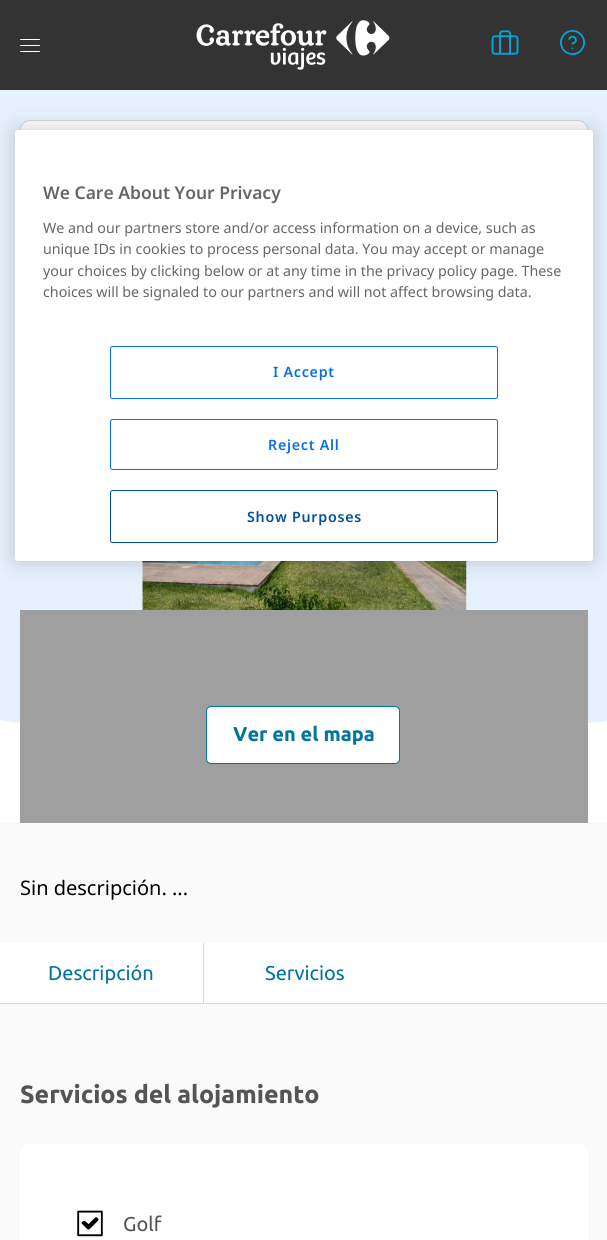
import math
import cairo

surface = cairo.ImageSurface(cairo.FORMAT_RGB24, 607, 1240)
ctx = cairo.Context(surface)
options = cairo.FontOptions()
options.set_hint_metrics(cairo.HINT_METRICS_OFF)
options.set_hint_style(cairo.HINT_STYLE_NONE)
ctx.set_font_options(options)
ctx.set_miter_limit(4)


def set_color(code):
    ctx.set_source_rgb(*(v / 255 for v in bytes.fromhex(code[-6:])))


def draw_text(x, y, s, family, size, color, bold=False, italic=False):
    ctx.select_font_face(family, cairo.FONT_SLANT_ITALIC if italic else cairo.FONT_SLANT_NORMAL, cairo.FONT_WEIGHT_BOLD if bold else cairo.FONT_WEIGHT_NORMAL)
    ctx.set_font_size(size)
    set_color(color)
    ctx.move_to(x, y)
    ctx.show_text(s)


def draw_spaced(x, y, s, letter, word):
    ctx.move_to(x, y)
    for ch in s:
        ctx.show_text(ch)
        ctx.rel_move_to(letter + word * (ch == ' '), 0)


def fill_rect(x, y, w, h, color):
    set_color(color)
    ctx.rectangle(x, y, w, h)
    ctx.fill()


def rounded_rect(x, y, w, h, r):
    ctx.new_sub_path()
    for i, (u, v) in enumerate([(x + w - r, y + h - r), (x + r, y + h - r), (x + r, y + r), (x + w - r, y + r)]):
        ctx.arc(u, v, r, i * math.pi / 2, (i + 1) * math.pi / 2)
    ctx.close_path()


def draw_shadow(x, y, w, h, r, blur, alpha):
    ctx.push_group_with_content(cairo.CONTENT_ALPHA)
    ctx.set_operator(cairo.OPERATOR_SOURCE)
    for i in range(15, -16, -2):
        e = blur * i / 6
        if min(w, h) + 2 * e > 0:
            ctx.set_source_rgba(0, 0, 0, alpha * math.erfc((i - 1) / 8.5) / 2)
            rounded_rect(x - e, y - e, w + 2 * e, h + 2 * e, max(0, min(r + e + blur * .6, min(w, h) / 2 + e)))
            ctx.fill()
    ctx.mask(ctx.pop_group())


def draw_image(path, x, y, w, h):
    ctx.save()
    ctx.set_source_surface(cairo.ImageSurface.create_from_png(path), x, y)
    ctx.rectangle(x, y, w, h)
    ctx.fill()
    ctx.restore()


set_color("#ffffff")
ctx.paint()
fill_rect(0, 0, 607, 90, "#333333")
set_color("#ffffff")
rounded_rect(20, 39, 20, 1, 0.5)
ctx.fill()
rounded_rect(20, 45, 20, 1, 0.5)
ctx.fill()
rounded_rect(20, 51, 20, 1, 0.5)
ctx.fill()
draw_image("assets/img1.png", 196, 20, 194, 50)
draw_image("assets/img2.png", 491, 30, 28, 25)
draw_image("assets/img3.png", 560, 30, 25, 25)
fill_rect(0, 90, 607, 128, "#e6f1fe")
set_color("#ffffff")
rounded_rect(20.5, 120.5, 567, 67, 9.5)
ctx.fill_preserve()
set_color("#d9d9d9")
ctx.set_line_width(1)
ctx.stroke()
set_color("#e6f1fe")
ctx.new_path()
ctx.move_to(-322, 632)
ctx.curve_to(-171, 707, 56, 739, 306, 739)
ctx.curve_to(555, 739, 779, 707, 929, 633)
ctx.line_to(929, 218)
ctx.line_to(-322, 218)
ctx.close_path()
ctx.fill()
draw_image("assets/img4.png", 142, 561, 325, 49)
set_color("#000000")
draw_shadow(15, 130, 578, 431, 3, 11, 0.2)
set_color("#ffffff")
rounded_rect(15, 130, 578, 431, 3)
ctx.fill()
draw_text(43, 199, "We Care About Your Privacy", "Noto Sans SemiBold", 17.5, "#666666")
draw_text(43, 233, "We and our partners store and/or access information on a device, such as", "Noto Sans", 14.25, "#666666")
draw_text(43, 254, "unique IDs in cookies to process personal data. You may accept or manage", "Noto Sans", 14.25, "#666666")
draw_text(43, 276, "your choices by clicking below or at any time in the privacy policy page. These", "Noto Sans", 14.25, "#666666")
draw_text(43, 297, "choices will be signaled to our partners and will not affect browsing data.", "Noto Sans", 14.25, "#666666")
rounded_rect(110.5, 346.5, 387, 52, 2)
set_color("#0970e6")
ctx.stroke()
ctx.select_font_face("Noto Sans SemiBold")
draw_spaced(273, 377, "I Accept", 0.75, 0)
rounded_rect(110.5, 419.5, 387, 50, 2)
ctx.stroke()
draw_spaced(268, 450, "Reject All", 0.75, 0)
rounded_rect(110.5, 490.5, 387, 52, 2)
set_color("#00529c")
ctx.stroke()
draw_spaced(247, 522, "Show Purposes", 0.75, 0)
fill_rect(20, 610, 568, 213, "#9f9f9f")
set_color("#ffffff")
rounded_rect(206.5, 706.5, 193, 57, 4.5)
ctx.fill_preserve()
set_color("#00769d")
ctx.stroke()
draw_text(233, 741, "Ver en el mapa", "Ubuntu", 20, "#00769d", bold=True)
fill_rect(0, 823, 607, 417, "#fafafa")
draw_text(20, 895, "Sin descripción. ...", "Noto Sans", 20, "#000000")
fill_rect(0, 943, 607, 60, "#ffffff")
fill_rect(0, 1003, 607, 1, "#d9d9d9")
draw_text(48, 980, "Descripción", "Ubuntu", 20, "#00769d")
fill_rect(203, 943, 1, 60, "#d9d9d9")
draw_text(265, 980, "Servicios", "Ubuntu", 20, "#00769d")
draw_text(20, 1103, "Servicios del alojamiento", "Ubuntu", 25, "#545454", bold=True)
set_color("#ffffff")
rounded_rect(20, 1144, 568, 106, 10)
ctx.fill()
draw_image("assets/img5.png", 77, 1210, 26, 27)
draw_text(123, 1231, "Golf", "Ubuntu", 20, "#545454")
surface.write_to_png("output.png")
